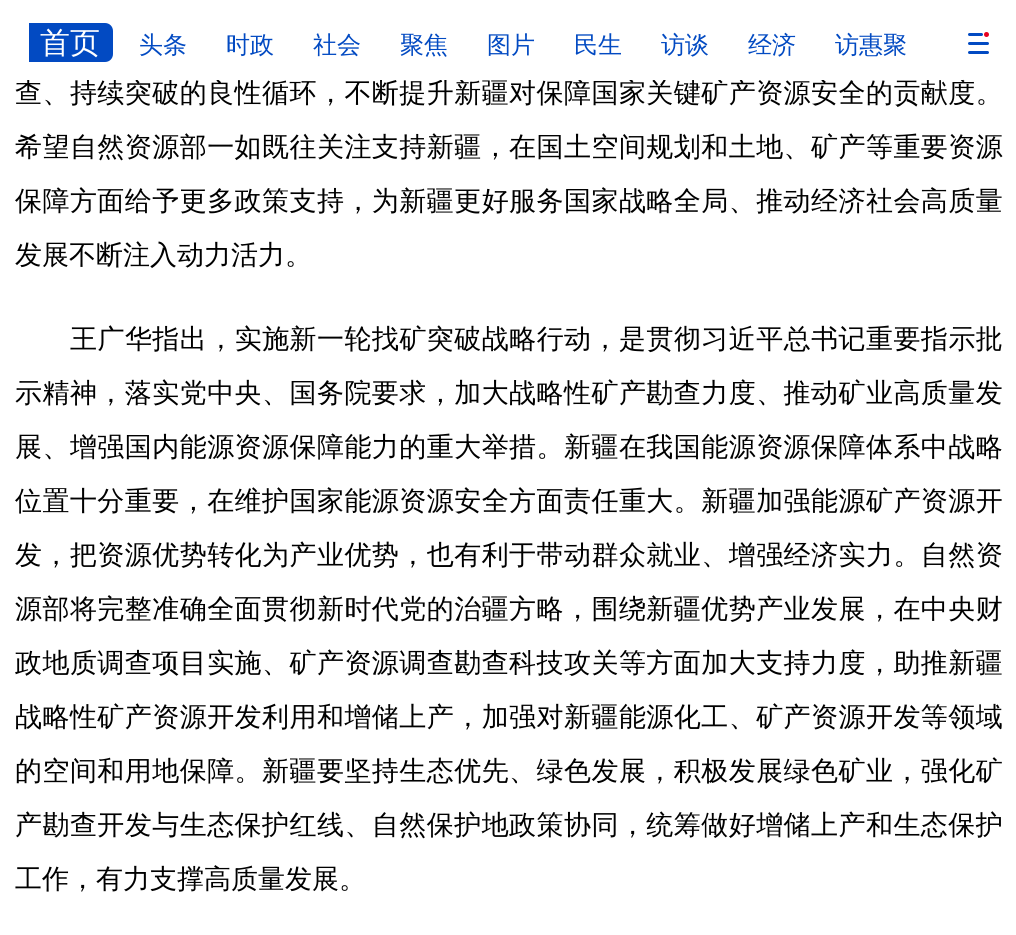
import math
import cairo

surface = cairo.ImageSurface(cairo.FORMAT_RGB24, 1016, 935)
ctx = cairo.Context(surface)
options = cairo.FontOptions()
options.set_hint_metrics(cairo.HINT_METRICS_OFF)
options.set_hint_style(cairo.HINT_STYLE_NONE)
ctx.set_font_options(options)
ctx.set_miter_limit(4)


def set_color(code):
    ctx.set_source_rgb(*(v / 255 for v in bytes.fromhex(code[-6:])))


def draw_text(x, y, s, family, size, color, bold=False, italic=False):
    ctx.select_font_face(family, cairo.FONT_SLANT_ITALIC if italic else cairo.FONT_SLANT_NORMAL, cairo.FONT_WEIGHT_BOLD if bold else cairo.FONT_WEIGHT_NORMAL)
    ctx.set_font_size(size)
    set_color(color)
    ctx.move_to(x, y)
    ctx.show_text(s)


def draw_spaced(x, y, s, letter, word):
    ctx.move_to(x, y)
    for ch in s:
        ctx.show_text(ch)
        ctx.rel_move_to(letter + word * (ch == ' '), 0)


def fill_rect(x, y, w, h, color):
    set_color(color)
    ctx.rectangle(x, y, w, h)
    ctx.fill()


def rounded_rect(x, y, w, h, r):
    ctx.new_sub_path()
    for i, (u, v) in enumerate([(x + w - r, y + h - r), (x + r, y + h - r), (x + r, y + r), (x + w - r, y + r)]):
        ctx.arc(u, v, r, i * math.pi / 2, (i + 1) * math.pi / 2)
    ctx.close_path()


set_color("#ffffff")
ctx.paint()
ctx.select_font_face("WenQuanYi Zen Hei Medium")
ctx.set_font_size(27)
set_color("#000000")
draw_spaced(15, 102, "查、持续突破的良性循环，不断提升新疆对保障国家关键矿产资源安全的贡献度。", 0.45, 0)
fill_rect(27, 79, 936, 1, "#ffffff")
set_color("#024ac2")
ctx.new_path()
ctx.move_to(29, 23)
ctx.line_to(105, 23)
ctx.curve_to(109.5, 23, 113, 26.5, 113, 31)
ctx.line_to(113, 54)
ctx.curve_to(113, 58.5, 109.5, 62, 105, 62)
ctx.line_to(29, 62)
ctx.close_path()
ctx.fill()
draw_text(40, 53, "首页", "WenQuanYi Zen Hei Medium", 30, "#ffffff")
draw_text(139, 53, "头条", "WenQuanYi Zen Hei Medium", 24, "#024ac2")
draw_text(226, 53, "时政", "WenQuanYi Zen Hei Medium", 24, "#024ac2")
draw_text(313, 53, "社会", "WenQuanYi Zen Hei Medium", 24, "#024ac2")
draw_text(400, 53, "聚焦", "WenQuanYi Zen Hei Medium", 24, "#024ac2")
draw_text(487, 53, "图片", "WenQuanYi Zen Hei Medium", 24, "#024ac2")
draw_text(574, 53, "民生", "WenQuanYi Zen Hei Medium", 24, "#024ac2")
draw_text(661, 53, "访谈", "WenQuanYi Zen Hei Medium", 24, "#024ac2")
draw_text(748, 53, "经济", "WenQuanYi Zen Hei Medium", 24, "#024ac2")
draw_text(835, 53, "访惠聚", "WenQuanYi Zen Hei Medium", 24, "#024ac2")
rounded_rect(968, 33, 15, 3, 1.5)
ctx.fill()
set_color("#e50020")
ctx.arc(986.5, 34.5, 2.5, 0, 2 * math.pi)
ctx.fill()
set_color("#024ac2")
rounded_rect(968, 42, 21, 3, 1.5)
ctx.fill()
rounded_rect(968, 51, 21, 3, 1.5)
ctx.fill()
ctx.set_font_size(27)
set_color("#000000")
draw_spaced(15, 156, "希望自然资源部一如既往关注支持新疆，在国土空间规划和土地、矿产等重要资源", 0.45, 0)
draw_spaced(15, 210, "保障方面给予更多政策支持，为新疆更好服务国家战略全局、推动经济社会高质量", 0.45, 0)
draw_text(15, 264, "发展不断注入动力活力。", "WenQuanYi Zen Hei Medium", 27, "#000000")
draw_spaced(70, 348, "王广华指出，实施新一轮找矿突破战略行动，是贯彻习近平总书记重要指示批", 0.45, 0)
draw_spaced(15, 402, "示精神，落实党中央、国务院要求，加大战略性矿产勘查力度、推动矿业高质量发", 0.45, 0)
draw_spaced(15, 456, "展、增强国内能源资源保障能力的重大举措。新疆在我国能源资源保障体系中战略", 0.45, 0)
draw_spaced(15, 510, "位置十分重要，在维护国家能源资源安全方面责任重大。新疆加强能源矿产资源开", 0.45, 0)
draw_spaced(15, 564, "发，把资源优势转化为产业优势，也有利于带动群众就业、增强经济实力。自然资", 0.45, 0)
draw_spaced(15, 618, "源部将完整准确全面贯彻新时代党的治疆方略，围绕新疆优势产业发展，在中央财", 0.45, 0)
draw_spaced(15, 672, "政地质调查项目实施、矿产资源调查勘查科技攻关等方面加大支持力度，助推新疆", 0.45, 0)
draw_spaced(15, 726, "战略性矿产资源开发利用和增储上产，加强对新疆能源化工、矿产资源开发等领域", 0.45, 0)
draw_spaced(15, 780, "的空间和用地保障。新疆要坚持生态优先、绿色发展，积极发展绿色矿业，强化矿", 0.45, 0)
draw_spaced(15, 834, "产勘查开发与生态保护红线、自然保护地政策协同，统筹做好增储上产和生态保护", 0.45, 0)
draw_text(15, 888, "工作，有力支撑高质量发展。", "WenQuanYi Zen Hei Medium", 27, "#000000")
surface.write_to_png("output.png")
